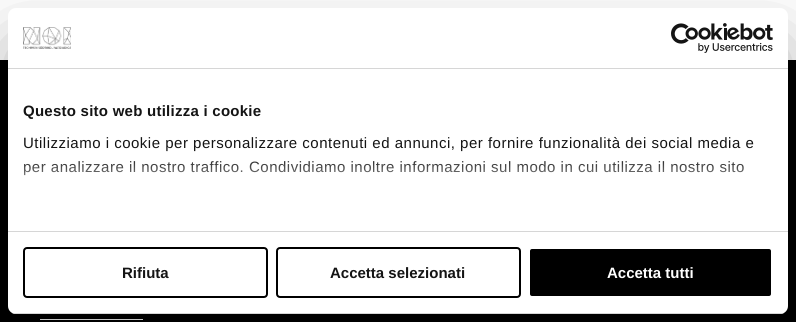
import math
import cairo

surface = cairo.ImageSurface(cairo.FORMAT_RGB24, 796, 322)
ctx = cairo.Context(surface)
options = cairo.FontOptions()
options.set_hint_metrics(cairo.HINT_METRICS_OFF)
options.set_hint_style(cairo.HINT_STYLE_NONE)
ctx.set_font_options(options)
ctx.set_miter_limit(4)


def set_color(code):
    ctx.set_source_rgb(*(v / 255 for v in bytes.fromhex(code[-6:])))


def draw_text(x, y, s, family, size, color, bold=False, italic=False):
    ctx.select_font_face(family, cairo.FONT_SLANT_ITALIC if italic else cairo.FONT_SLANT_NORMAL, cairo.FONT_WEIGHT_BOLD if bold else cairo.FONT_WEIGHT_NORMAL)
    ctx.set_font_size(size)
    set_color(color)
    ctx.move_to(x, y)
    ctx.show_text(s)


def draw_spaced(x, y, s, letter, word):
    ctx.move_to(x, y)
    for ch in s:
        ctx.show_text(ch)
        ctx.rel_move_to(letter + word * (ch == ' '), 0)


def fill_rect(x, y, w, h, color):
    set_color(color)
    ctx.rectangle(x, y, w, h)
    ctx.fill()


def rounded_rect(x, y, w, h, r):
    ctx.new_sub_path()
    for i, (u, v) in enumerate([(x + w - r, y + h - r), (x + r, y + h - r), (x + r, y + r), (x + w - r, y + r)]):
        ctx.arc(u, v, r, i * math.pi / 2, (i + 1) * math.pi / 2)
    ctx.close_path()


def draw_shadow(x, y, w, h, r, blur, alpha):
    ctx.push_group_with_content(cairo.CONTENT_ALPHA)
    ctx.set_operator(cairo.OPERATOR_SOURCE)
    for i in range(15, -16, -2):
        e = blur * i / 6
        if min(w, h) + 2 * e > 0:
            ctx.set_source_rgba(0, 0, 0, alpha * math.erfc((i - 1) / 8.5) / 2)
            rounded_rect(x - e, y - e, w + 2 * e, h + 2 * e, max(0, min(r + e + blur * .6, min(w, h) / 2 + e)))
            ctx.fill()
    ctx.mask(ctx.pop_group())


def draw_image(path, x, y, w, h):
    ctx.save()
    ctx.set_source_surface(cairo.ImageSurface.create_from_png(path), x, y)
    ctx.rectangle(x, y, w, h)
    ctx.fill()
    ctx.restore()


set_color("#000000")
ctx.paint()
fill_rect(0, 0, 796, 60, "#ffffff")
fill_rect(40, 319, 103, 1, "#ffffff")
set_color("#000000")
draw_shadow(8, 40, 780, 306, 8, 34, 0.3)
set_color("#ffffff")
rounded_rect(8, 8, 780, 306, 8)
ctx.fill()
fill_rect(8, 68, 780, 1, "#d6d6d6")
draw_image("assets/img1.png", 23, 27, 48, 22)
draw_image("assets/img2.png", 671, 23, 102, 30)
fill_rect(8, 231, 780, 1, "#d6d6d6")
ctx.select_font_face("Liberation Sans", cairo.FONT_SLANT_NORMAL, cairo.FONT_WEIGHT_BOLD)
ctx.set_font_size(15)
set_color("#141414")
draw_spaced(23, 116, "Questo sito web utilizza i cookie", 0.25, 0)
ctx.select_font_face("Liberation Sans")
draw_spaced(23, 148, "Utilizziamo i cookie per personalizzare contenuti ed annunci, per fornire funzionalità dei social media e", 0.5, 0)
draw_spaced(23, 172, "per analizzare il nostro traffico. Condividiamo inoltre informazioni sul modo in cui utilizza il nostro sito", 0.5, 0)
gradient = cairo.LinearGradient(392, 231, 392, 156)
gradient.add_color_stop_rgba(0, 1, 1, 1, 1)
gradient.add_color_stop_rgba(0.5, 1, 1, 1, 0.8)
gradient.add_color_stop_rgba(1, 1, 1, 1, 0)
ctx.set_source(gradient)
ctx.rectangle(24, 161, 720, 15)
ctx.fill()
ctx.save()
rounded_rect(8, 8, 780, 306, 8)
ctx.clip()
fill_rect(8, 313, 780, 1, "#d6d6d6")
ctx.restore()
rounded_rect(24, 248, 243, 49, 3)
set_color("#000000")
ctx.stroke()
draw_text(122, 278, "Rifiuta", "Liberation Sans", 15, "#141414", bold=True)
rounded_rect(277, 248, 243, 49, 3)
set_color("#000000")
ctx.stroke()
draw_text(330, 278, "Accetta selezionati", "Liberation Sans", 15, "#141414", bold=True)
set_color("#000000")
rounded_rect(529, 248, 243, 49, 3)
ctx.fill_preserve()
set_color("#ffffff")
ctx.stroke()
draw_text(607, 278, "Accetta tutti", "Liberation Sans", 15, "#ffffff", bold=True)
surface.write_to_png("output.png")
